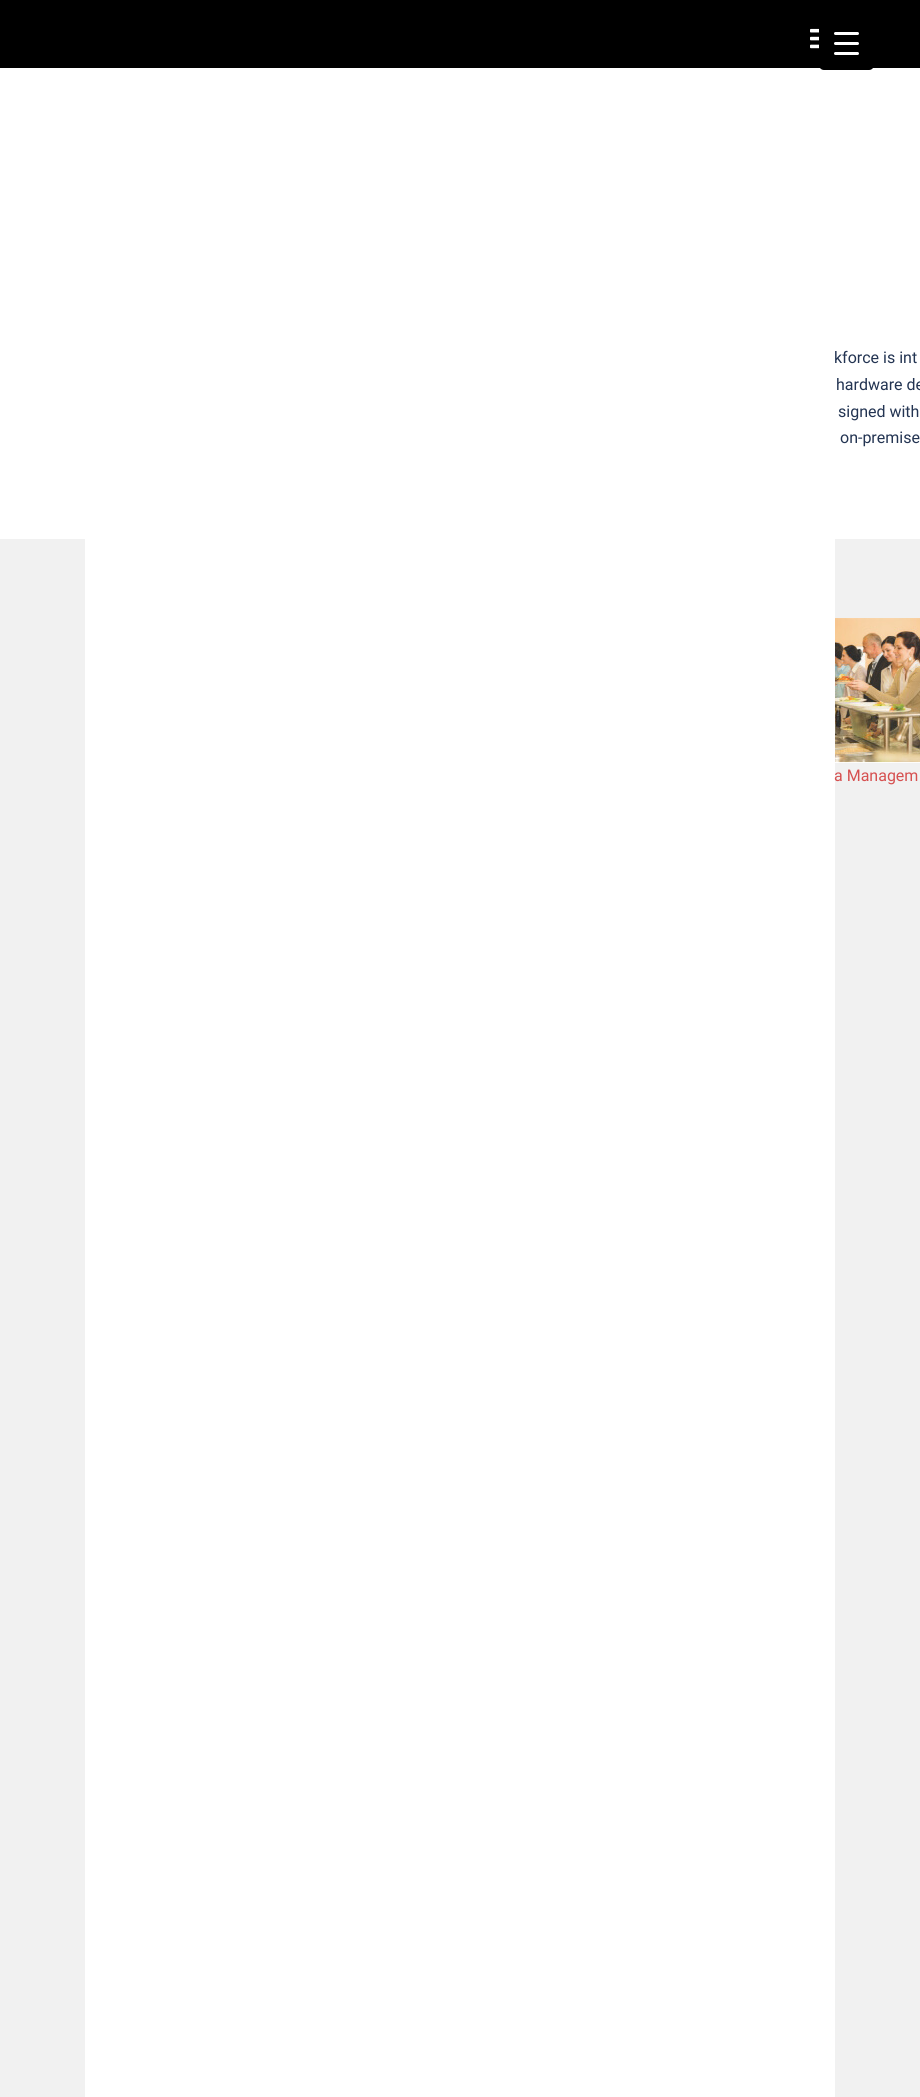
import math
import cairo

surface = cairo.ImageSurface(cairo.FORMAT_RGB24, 920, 2097)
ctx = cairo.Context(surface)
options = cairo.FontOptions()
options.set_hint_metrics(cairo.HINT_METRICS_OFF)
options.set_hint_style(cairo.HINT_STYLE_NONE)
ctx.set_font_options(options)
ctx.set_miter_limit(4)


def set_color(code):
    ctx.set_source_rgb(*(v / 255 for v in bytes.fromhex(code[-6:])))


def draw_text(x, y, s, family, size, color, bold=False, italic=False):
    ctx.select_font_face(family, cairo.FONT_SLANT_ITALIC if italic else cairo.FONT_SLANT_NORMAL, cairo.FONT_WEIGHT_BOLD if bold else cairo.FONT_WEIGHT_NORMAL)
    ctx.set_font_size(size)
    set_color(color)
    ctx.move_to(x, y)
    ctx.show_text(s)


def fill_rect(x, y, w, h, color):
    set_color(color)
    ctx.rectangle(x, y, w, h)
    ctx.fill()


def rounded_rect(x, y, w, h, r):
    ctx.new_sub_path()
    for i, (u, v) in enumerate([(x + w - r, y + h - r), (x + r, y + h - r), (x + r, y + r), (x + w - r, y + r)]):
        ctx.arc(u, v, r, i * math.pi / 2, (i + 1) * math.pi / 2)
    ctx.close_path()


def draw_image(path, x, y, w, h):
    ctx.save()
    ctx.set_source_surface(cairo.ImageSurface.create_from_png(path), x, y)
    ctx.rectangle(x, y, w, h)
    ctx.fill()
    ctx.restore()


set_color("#ffffff")
ctx.paint()
fill_rect(0, 0, 920, 68, "#000000")
rounded_rect(819, 15, 55, 55, 5)
ctx.fill()
set_color("#ffffff")
rounded_rect(834, 42, 25, 3, 1.5)
ctx.fill()
rounded_rect(834, 32, 25, 3, 1.5)
ctx.fill()
rounded_rect(834, 52, 25, 3, 1.5)
ctx.fill()
draw_image("assets/img1.png", 810, 28, 9, 21)
fill_rect(0, 539, 920, 1558, "#f1f1f1")
fill_rect(85, 539, 750, 1558, "#ffffff")
draw_text(834, 363, "kforce is int", "Roboto", 16, "#233452")
draw_text(836, 390, "hardware de", "Roboto", 16, "#233452")
draw_text(838, 417, "signed with", "Roboto", 16, "#233452")
draw_text(840, 443, "on-premise", "Roboto", 16, "#233452")
draw_image("assets/img2.png", 835, 618, 85, 145)
draw_text(834, 781, "a Managem", "Roboto", 16, "#d65050")
surface.write_to_png("output.png")
